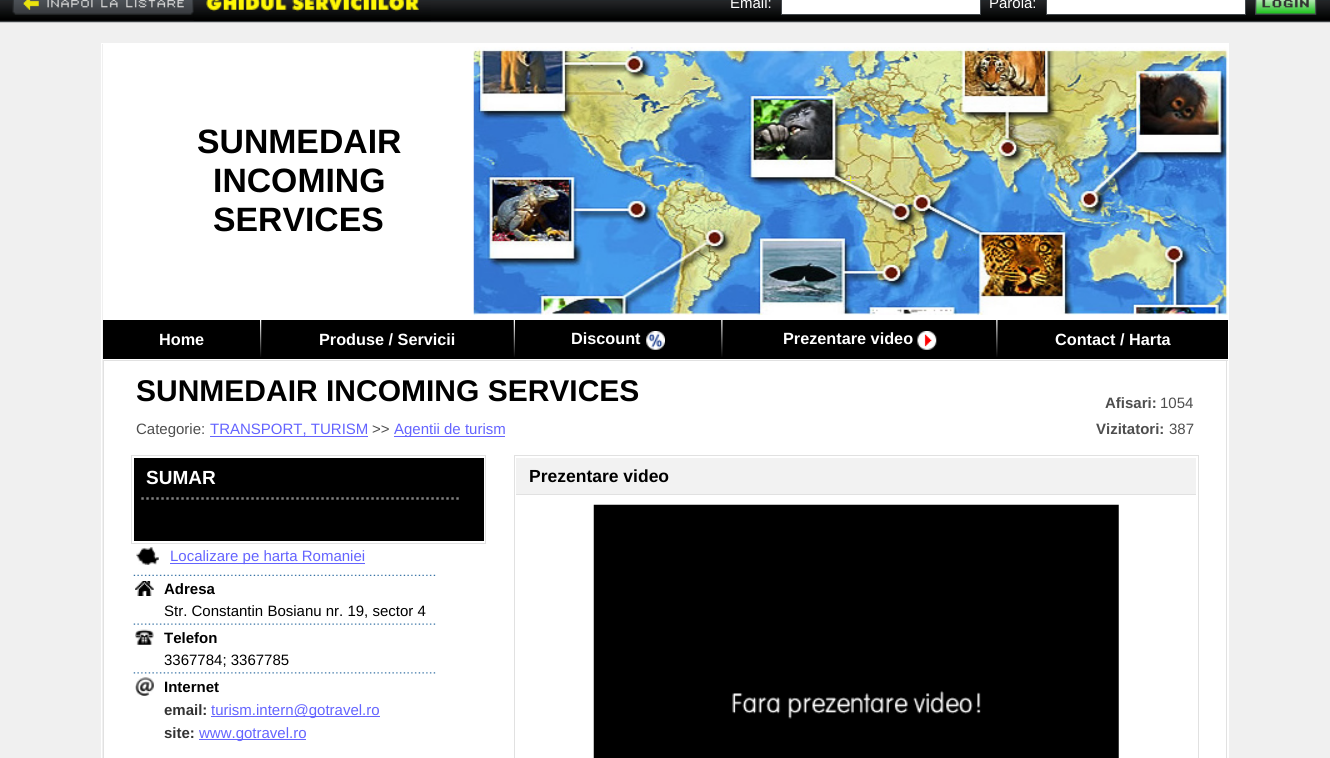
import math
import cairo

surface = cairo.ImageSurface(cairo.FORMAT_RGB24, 1330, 758)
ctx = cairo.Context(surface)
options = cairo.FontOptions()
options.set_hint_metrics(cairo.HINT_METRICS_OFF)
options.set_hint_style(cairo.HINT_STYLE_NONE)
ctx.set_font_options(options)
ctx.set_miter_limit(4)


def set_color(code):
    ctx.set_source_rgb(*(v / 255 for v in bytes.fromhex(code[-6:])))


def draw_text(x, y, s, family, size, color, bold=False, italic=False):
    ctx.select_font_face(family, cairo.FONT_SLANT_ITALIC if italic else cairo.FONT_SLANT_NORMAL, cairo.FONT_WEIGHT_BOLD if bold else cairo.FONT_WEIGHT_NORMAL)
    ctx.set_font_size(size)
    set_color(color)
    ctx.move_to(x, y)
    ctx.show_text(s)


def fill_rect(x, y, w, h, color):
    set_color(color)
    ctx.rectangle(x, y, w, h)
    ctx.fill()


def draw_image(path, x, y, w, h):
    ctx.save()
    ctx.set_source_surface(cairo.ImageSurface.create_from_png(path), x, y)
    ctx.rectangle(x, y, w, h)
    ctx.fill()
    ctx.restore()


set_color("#f0f0f0")
ctx.paint()
draw_image("assets/img1.png", 0, 0, 1330, 23)
draw_image("assets/img2.png", 12, 0, 182, 15)
draw_image("assets/img3.png", 193, 0, 238, 21)
draw_text(730, 8, "Email:", "Liberation Sans", 15, "#ffffff")
ctx.rectangle(781.5, -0.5, 199, 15)
ctx.fill_preserve()
set_color("#44494d")
ctx.set_line_width(1)
ctx.stroke()
draw_text(989, 8, "Parola:", "Liberation Sans", 15, "#ffffff")
ctx.rectangle(1046.5, -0.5, 199, 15)
ctx.fill_preserve()
set_color("#44494d")
ctx.stroke()
draw_image("assets/img4.png", 1255, 0, 62, 15)
ctx.rectangle(101.5, 43.5, 1127, 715)
set_color("#ffffff")
ctx.stroke()
fill_rect(103, 44, 1125, 276, "#ffffff")
draw_image("assets/img5.png", 473, 47, 755, 268)
draw_text(197, 153, "SUNMEDAIR", "Liberation Sans", 33.75, "#000000", bold=True)
draw_text(213, 192, "INCOMING", "Liberation Sans", 33.75, "#000000", bold=True)
draw_text(213, 231, "SERVICES", "Liberation Sans", 33.75, "#000000", bold=True)
fill_rect(103, 359, 1125, 1, "#ffffff")
fill_rect(103, 320, 1125, 39, "#000000")
draw_text(159, 345, "Home", "Liberation Sans", 16.25, "#ffffff", bold=True)
draw_image("assets/img6.png", 260, 320, 2, 37)
draw_text(319, 345, "Produse / Servicii", "Liberation Sans", 16.25, "#ffffff", bold=True)
draw_image("assets/img7.png", 513, 320, 2, 37)
draw_text(571, 344, "Discount", "Liberation Sans", 16.25, "#ffffff", bold=True)
draw_image("assets/img8.png", 646, 331, 19, 19)
draw_image("assets/img9.png", 721, 320, 2, 37)
draw_text(783, 344, "Prezentare video", "Liberation Sans", 16.25, "#ffffff", bold=True)
draw_image("assets/img10.png", 917, 331, 20, 19)
draw_image("assets/img9.png", 996, 320, 2, 37)
draw_text(1055, 345, "Contact / Harta", "Liberation Sans", 16.25, "#ffffff", bold=True)
fill_rect(104, 361, 1124, 397, "#ffffff")
fill_rect(103, 360, 1125, 1, "#e1e1e1")
fill_rect(1226, 360, 1, 398, "#e1e1e1")
fill_rect(103, 360, 1, 398, "#e1e1e1")
draw_text(136, 401, "SUNMEDAIR INCOMING SERVICES", "Liberation Sans", 30, "#000000", bold=True)
draw_text(1105, 408, "Afisari:", "Liberation Sans", 15, "#4e4e4e", bold=True)
draw_text(1160, 408, "1054", "Liberation Sans", 15, "#4e4e4e")
draw_text(136, 434, "Categorie:", "Liberation Sans", 15, "#4e4e4e")
draw_text(210, 434, "TRANSPORT, TURISM", "Liberation Sans", 15, "#6464ff")
fill_rect(210, 436, 158, 1, "#6464ff")
draw_text(372, 434, ">>", "Liberation Sans", 15, "#4e4e4e")
fill_rect(394, 436, 111, 1, "#6464ff")
draw_text(394, 434, "Agentii de turism", "Liberation Sans", 15, "#6464ff")
draw_text(1096, 434, "Vizitatori:", "Liberation Sans", 15, "#4e4e4e", bold=True)
draw_text(1169, 434, "387", "Liberation Sans", 15, "#4e4e4e")
ctx.rectangle(131.5, 455.5, 354, 88)
set_color("#e1e1e1")
ctx.stroke()
fill_rect(134, 458, 350, 83, "#000000")
draw_text(146, 484, "SUMAR", "Liberation Sans", 19, "#ffffff", bold=True)
draw_image("assets/img11.png", 141, 497, 318, 3)
draw_image("assets/img12.png", 136, 547, 23, 18)
fill_rect(170, 563, 195, 1, "#6464ff")
draw_text(170, 561, "Localizare pe harta Romaniei", "Liberation Sans", 15, "#6464ff")
draw_image("assets/img13.png", 133, 574, 303, 2)
draw_image("assets/img14.png", 135, 581, 19, 15)
draw_text(164, 594, "Adresa", "Liberation Sans", 15, "#000000", bold=True)
draw_text(164, 616, "Str. Constantin Bosianu nr. 19, sector 4", "Liberation Sans", 15, "#000000")
draw_image("assets/img15.png", 133, 623, 303, 2)
draw_image("assets/img16.png", 135, 629, 19, 16)
draw_text(164, 643, "Telefon", "Liberation Sans", 15, "#000000", bold=True)
draw_text(164, 665, "3367784; 3367785", "Liberation Sans", 15, "#000000")
draw_image("assets/img17.png", 133, 672, 303, 2)
draw_image("assets/img18.png", 135, 677, 19, 19)
draw_text(164, 692, "Internet", "Liberation Sans", 15, "#000000", bold=True)
draw_text(164, 715, "email:", "Liberation Sans", 15, "#333333", bold=True)
fill_rect(211, 716, 169, 1, "#6464ff")
draw_text(211, 715, "turism.intern@gotravel.ro", "Liberation Sans", 15, "#6464ff")
draw_text(164, 738, "site:", "Liberation Sans", 15, "#333333", bold=True)
fill_rect(199, 739, 107, 1, "#6464ff")
draw_text(199, 738, "www.gotravel.ro", "Liberation Sans", 15, "#6464ff")
ctx.rectangle(514.5, 455.5, 684, 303)
set_color("#e1e1e1")
ctx.stroke()
fill_rect(516, 458, 680, 36, "#f2f2f2")
fill_rect(516, 494, 680, 1, "#e1e1e1")
draw_text(529, 482, "Prezentare video", "Liberation Sans", 17.5, "#000000", bold=True)
draw_image("assets/img19.png", 593, 504, 526, 254)
surface.write_to_png("output.png")
